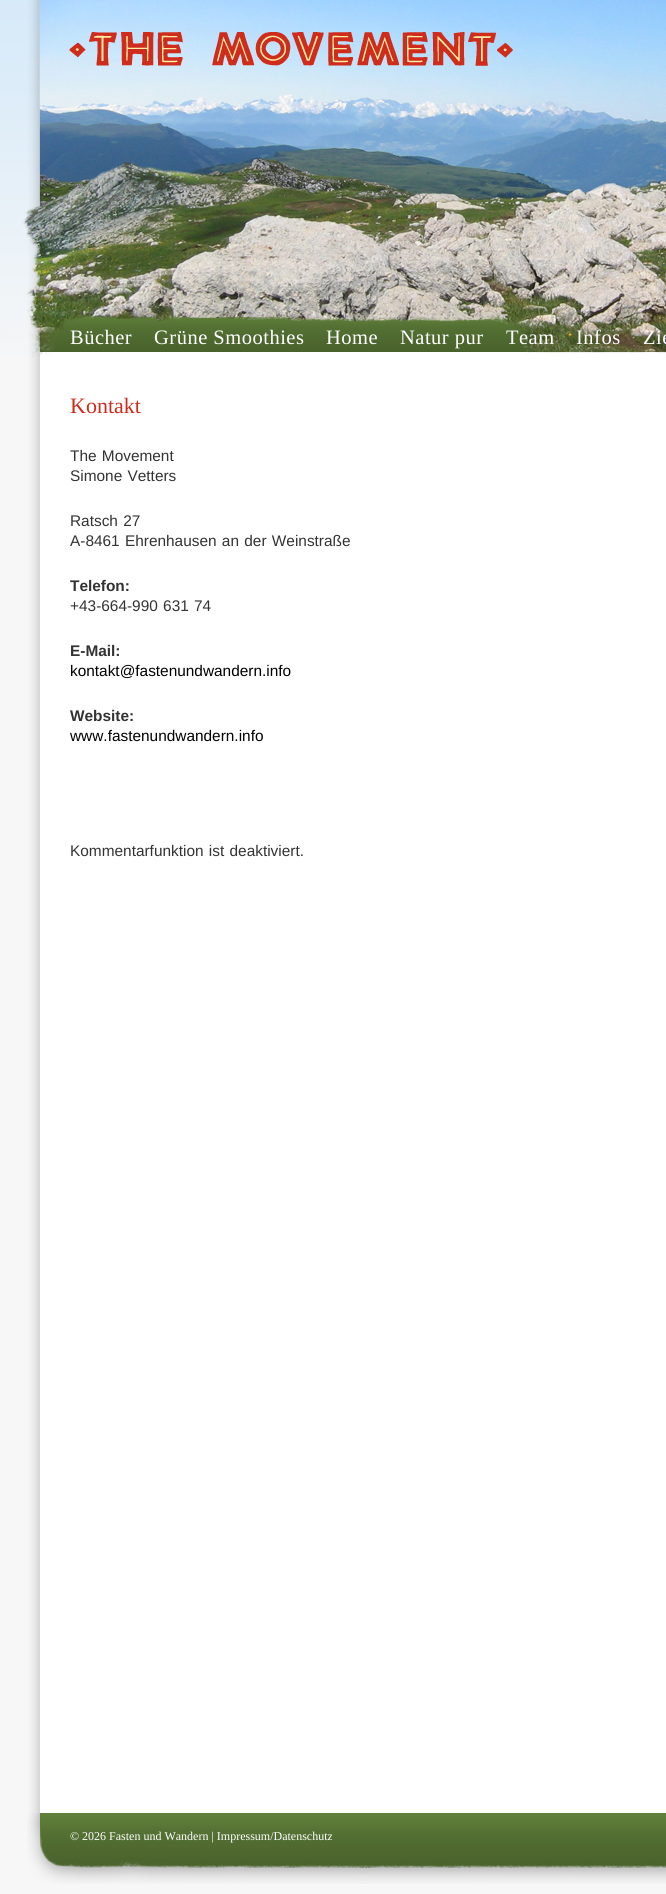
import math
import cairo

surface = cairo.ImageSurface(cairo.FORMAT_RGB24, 666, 1894)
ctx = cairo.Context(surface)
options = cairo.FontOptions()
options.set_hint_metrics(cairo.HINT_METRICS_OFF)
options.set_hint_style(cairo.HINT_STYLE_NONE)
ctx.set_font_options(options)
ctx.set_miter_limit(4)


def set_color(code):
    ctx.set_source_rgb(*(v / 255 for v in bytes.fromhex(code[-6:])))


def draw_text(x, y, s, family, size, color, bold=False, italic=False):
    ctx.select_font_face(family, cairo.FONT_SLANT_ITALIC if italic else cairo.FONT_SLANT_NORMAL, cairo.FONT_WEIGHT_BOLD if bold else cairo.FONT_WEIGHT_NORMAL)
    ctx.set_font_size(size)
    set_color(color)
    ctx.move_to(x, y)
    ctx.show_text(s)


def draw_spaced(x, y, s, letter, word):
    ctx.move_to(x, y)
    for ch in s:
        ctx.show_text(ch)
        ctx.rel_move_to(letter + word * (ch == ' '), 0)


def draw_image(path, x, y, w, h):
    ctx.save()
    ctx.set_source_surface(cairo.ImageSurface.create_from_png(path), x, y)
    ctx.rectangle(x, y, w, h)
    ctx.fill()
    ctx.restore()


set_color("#f7f7f7")
ctx.paint()
draw_image("assets/img1.png", 0, 357, 666, 1456)
draw_image("assets/img2.png", 0, 0, 666, 357)
ctx.select_font_face("Liberation Serif")
ctx.set_font_size(20.5)
set_color("#ffffff")
draw_spaced(70, 344, "Bücher", 0.5, 0)
draw_spaced(154, 344, "Grüne Smoothies", 0.5, 0)
draw_spaced(326, 344, "Home", 0.5, 0)
draw_spaced(400, 344, "Natur pur", 0.5, 0)
draw_spaced(506, 344, "Team", 0.5, 0)
draw_spaced(576, 344, "Infos", 0.5, 0)
draw_spaced(643, 344, "Zie", 0.5, 0)
draw_text(70, 413, "Kontakt", "Liberation Serif", 22, "#cf2c1c")
ctx.select_font_face("Liberation Sans")
ctx.set_font_size(15.4)
set_color("#333333")
draw_spaced(70, 461, "The Movement", 0, 1)
draw_spaced(70, 481, "Simone Vetters", 0, 1)
draw_spaced(70, 526, "Ratsch 27", 0, 1)
draw_spaced(70, 546, "A-8461 Ehrenhausen an der Weinstraße", 0, 1)
draw_text(70, 591, "Telefon:", "Liberation Sans", 15.4, "#333333", bold=True)
ctx.select_font_face("Liberation Sans")
draw_spaced(70, 611, "+43-664-990 631 74", 0, 1)
draw_text(70, 656, "E-Mail:", "Liberation Sans", 15.4, "#333333", bold=True)
draw_text(70, 676, "kontakt@fastenundwandern.info", "Liberation Sans", 15.4, "#000000")
draw_text(70, 721, "Website:", "Liberation Sans", 15.4, "#333333", bold=True)
draw_text(70, 741, "www.fastenundwandern.info", "Liberation Sans", 15.4, "#000000")
set_color("#333333")
draw_spaced(70, 856, "Kommentarfunktion ist deaktiviert.", 0, 1)
draw_image("assets/img3.png", 27, 1813, 639, 71)
draw_text(70, 1840, "© 2026 Fasten und Wandern | Impressum/Datenschutz", "Liberation Serif", 12, "#ffffff")
surface.write_to_png("output.png")
